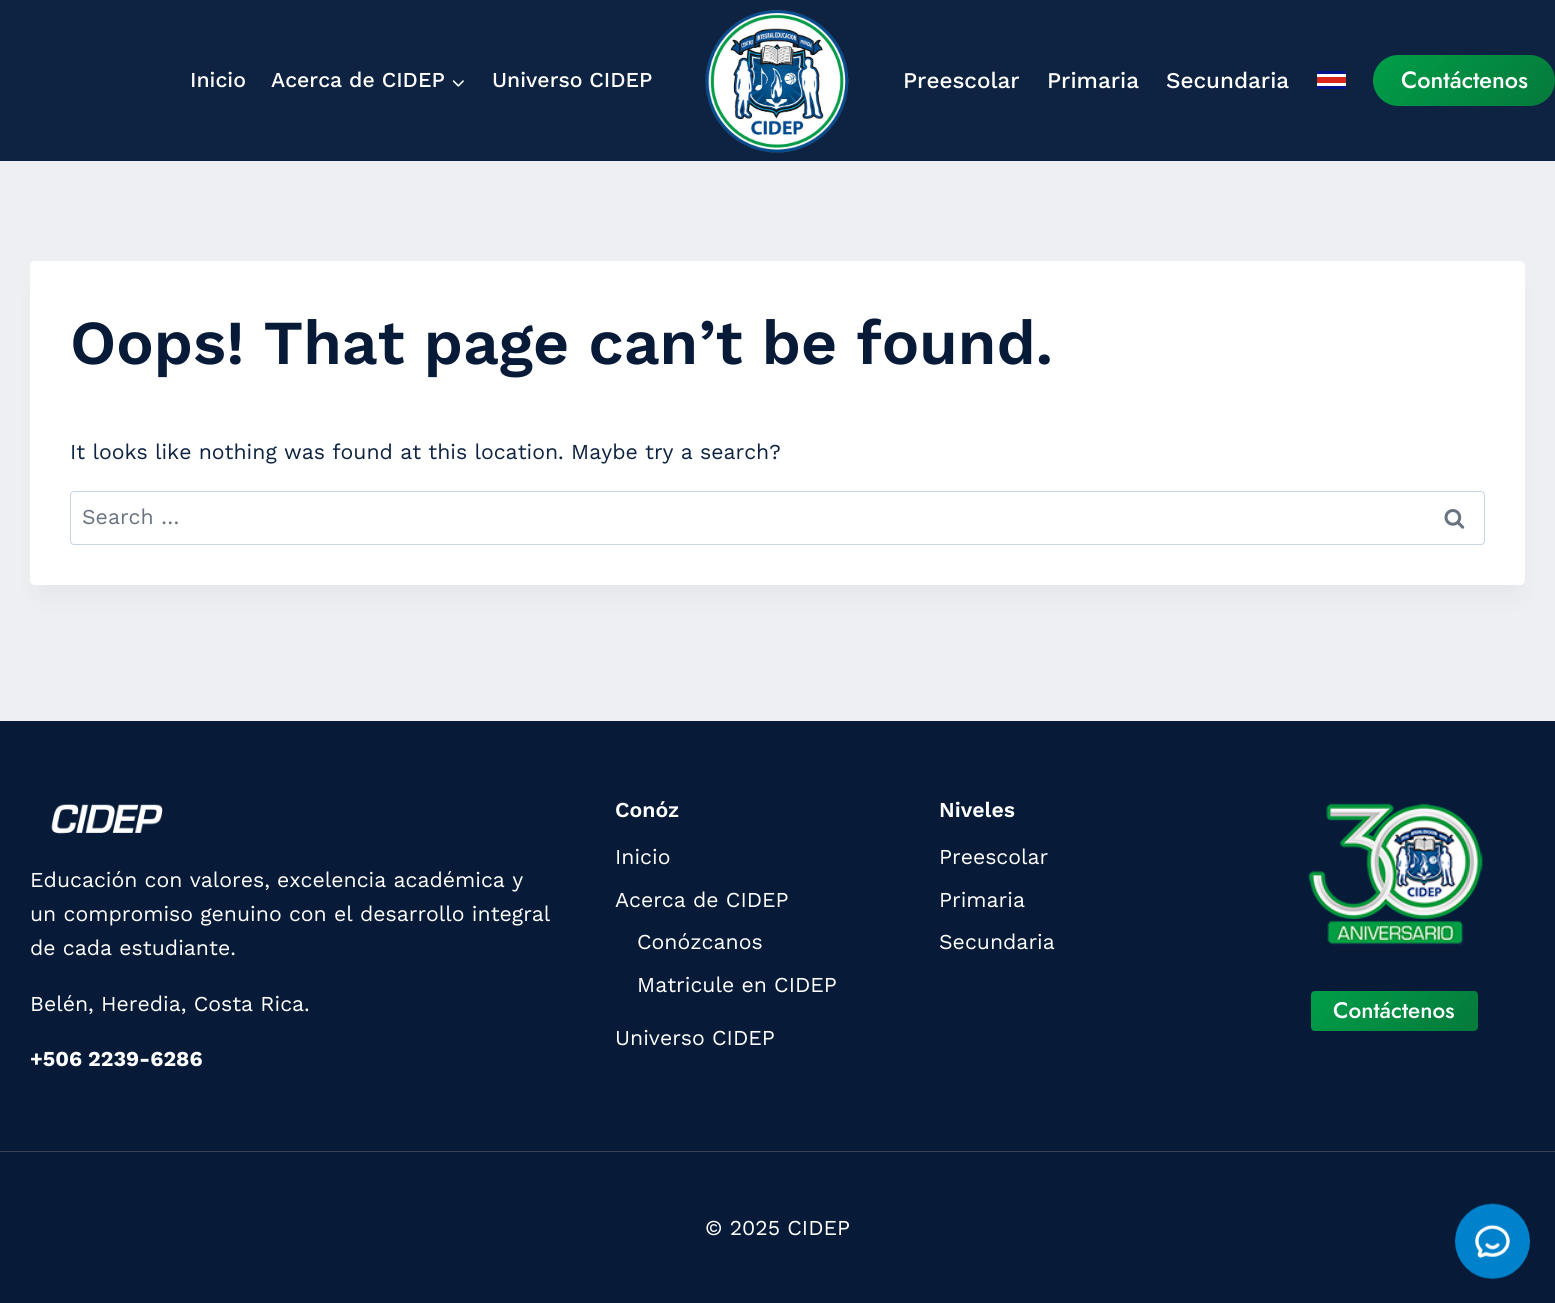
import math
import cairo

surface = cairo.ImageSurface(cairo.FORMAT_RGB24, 1555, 1303)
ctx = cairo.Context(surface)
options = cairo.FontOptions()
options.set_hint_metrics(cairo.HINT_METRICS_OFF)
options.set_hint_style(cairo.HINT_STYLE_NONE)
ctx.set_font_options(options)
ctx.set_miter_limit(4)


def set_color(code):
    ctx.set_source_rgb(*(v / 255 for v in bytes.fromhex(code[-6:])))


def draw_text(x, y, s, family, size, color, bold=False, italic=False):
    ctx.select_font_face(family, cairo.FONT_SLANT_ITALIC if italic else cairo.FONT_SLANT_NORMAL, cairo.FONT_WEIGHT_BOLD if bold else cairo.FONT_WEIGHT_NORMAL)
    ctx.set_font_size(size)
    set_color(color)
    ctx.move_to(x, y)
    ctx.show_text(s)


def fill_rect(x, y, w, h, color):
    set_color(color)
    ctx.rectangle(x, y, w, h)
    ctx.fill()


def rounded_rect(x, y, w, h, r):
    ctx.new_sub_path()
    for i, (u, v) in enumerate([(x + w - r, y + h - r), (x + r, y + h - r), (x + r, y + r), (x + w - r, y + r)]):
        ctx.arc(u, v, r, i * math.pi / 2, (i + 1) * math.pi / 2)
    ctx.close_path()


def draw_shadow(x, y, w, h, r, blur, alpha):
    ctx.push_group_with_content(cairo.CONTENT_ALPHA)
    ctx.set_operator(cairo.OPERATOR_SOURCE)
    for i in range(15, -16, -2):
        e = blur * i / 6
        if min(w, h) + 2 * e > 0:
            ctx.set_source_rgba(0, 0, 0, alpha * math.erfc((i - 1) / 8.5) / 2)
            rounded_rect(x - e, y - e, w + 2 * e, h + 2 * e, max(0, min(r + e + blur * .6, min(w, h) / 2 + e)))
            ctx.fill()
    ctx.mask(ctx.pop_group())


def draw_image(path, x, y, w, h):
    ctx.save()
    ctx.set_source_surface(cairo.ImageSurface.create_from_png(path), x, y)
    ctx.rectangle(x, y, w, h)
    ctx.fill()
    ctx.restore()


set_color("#edeff3")
ctx.paint()
fill_rect(0, 0, 1555, 161, "#0e2341")
draw_text(190, 87, "Inicio", "Work Sans Medium", 21.25, "#ffffff")
draw_text(271, 87, "Acerca de CIDEP", "Work Sans Medium", 21.25, "#ffffff")
draw_image("assets/img1.png", 452, 80, 12, 7)
draw_text(492, 87, "Universo CIDEP", "Work Sans Medium", 21.25, "#ffffff")
draw_image("assets/img2.png", 705, 10, 144, 143)
draw_text(903, 88, "Preescolar", "Work Sans Medium", 22.5, "#ffffff")
draw_text(1047, 88, "Primaria", "Work Sans Medium", 22.5, "#ffffff")
draw_text(1166, 88, "Secundaria", "Work Sans Medium", 22.5, "#ffffff")
fill_rect(1317, 71, 29, 18, "#001489")
fill_rect(1317, 74, 29, 12, "#ffffff")
fill_rect(1317, 77, 29, 6, "#da291c")
gradient = cairo.LinearGradient(1405, 22, 1522, 139)
gradient.add_color_stop_rgba(0, 0, 0.62, 0.286, 1)
gradient.add_color_stop_rgba(1, 0.02, 0.475, 0.231, 1)
ctx.set_source(gradient)
rounded_rect(1373, 55, 182, 51, 25.5)
ctx.fill()
draw_text(1401, 88, "Contáctenos", "Jost Medium", 23.5, "#ffffff")
set_color("#000000")
draw_shadow(43, 293, 1470, 298, 0, 15.5, 0.05)
set_color("#ffffff")
rounded_rect(30, 261, 1495, 324, 5)
ctx.fill()
draw_text(70, 364, "Oops! That page can’t be found.", "Work Sans SemiBold", 62.5, "#071b38")
draw_text(70, 459, "It looks like nothing was found at this location. Maybe try a search?", "Work Sans", 21.25, "#0e2341")
rounded_rect(70.5, 491.5, 1414, 53, 3.5)
set_color("#cbd5e0")
ctx.set_line_width(1)
ctx.stroke()
draw_text(82, 524, "Search …", "Work Sans", 21.25, "#697380")
draw_image("assets/img3.png", 1444, 509, 21, 20)
fill_rect(0, 721, 1555, 582, "#071b38")
fill_rect(0, 1151, 1555, 1, "#374352")
draw_image("assets/img4.png", 51, 804, 112, 30)
draw_text(30, 887, "Educación con valores, excelencia académica y", "Work Sans", 21.25, "#ffffff")
draw_text(30, 921, "un compromiso genuino con el desarrollo integral", "Work Sans", 21.25, "#ffffff")
draw_text(30, 955, "de cada estudiante.", "Work Sans", 21.25, "#ffffff")
draw_text(30, 1011, "Belén, Heredia, Costa Rica.", "Work Sans", 21.25, "#ffffff")
draw_text(30, 1066, "+506 2239-6286", "Work Sans", 21.25, "#ffffff", bold=True)
draw_text(615, 817, "Conóz", "Work Sans SemiBold", 21.25, "#ffffff")
draw_text(615, 864, "Inicio", "Work Sans", 21.25, "#ffffff")
draw_text(615, 907, "Acerca de CIDEP", "Work Sans", 21.25, "#ffffff")
draw_text(637, 949, "Conózcanos", "Work Sans", 21.25, "#ffffff")
draw_text(637, 992, "Matricule en CIDEP", "Work Sans", 21.25, "#ffffff")
draw_text(615, 1045, "Universo CIDEP", "Work Sans", 21.25, "#ffffff")
draw_text(939, 817, "Niveles", "Work Sans SemiBold", 21.25, "#ffffff")
draw_text(939, 864, "Preescolar", "Work Sans", 21.25, "#ffffff")
draw_text(939, 907, "Primaria", "Work Sans", 21.25, "#ffffff")
draw_text(939, 949, "Secundaria", "Work Sans", 21.25, "#ffffff")
draw_image("assets/img5.png", 1308, 803, 175, 143)
gradient = cairo.LinearGradient(1343, 960, 1446, 1063)
gradient.add_color_stop_rgba(0, 0, 0.62, 0.286, 1)
gradient.add_color_stop_rgba(1, 0.02, 0.475, 0.231, 1)
ctx.set_source(gradient)
rounded_rect(1311, 991, 167, 40, 4)
ctx.fill()
draw_text(1333, 1018, "Contáctenos", "Jost Medium", 22.5, "#ffffff")
draw_text(705, 1235, "© 2025 CIDEP", "Work Sans", 21.25, "#ffffff")
draw_image("assets/img6.png", 1455, 1203, 75, 76)
surface.write_to_png("output.png")
